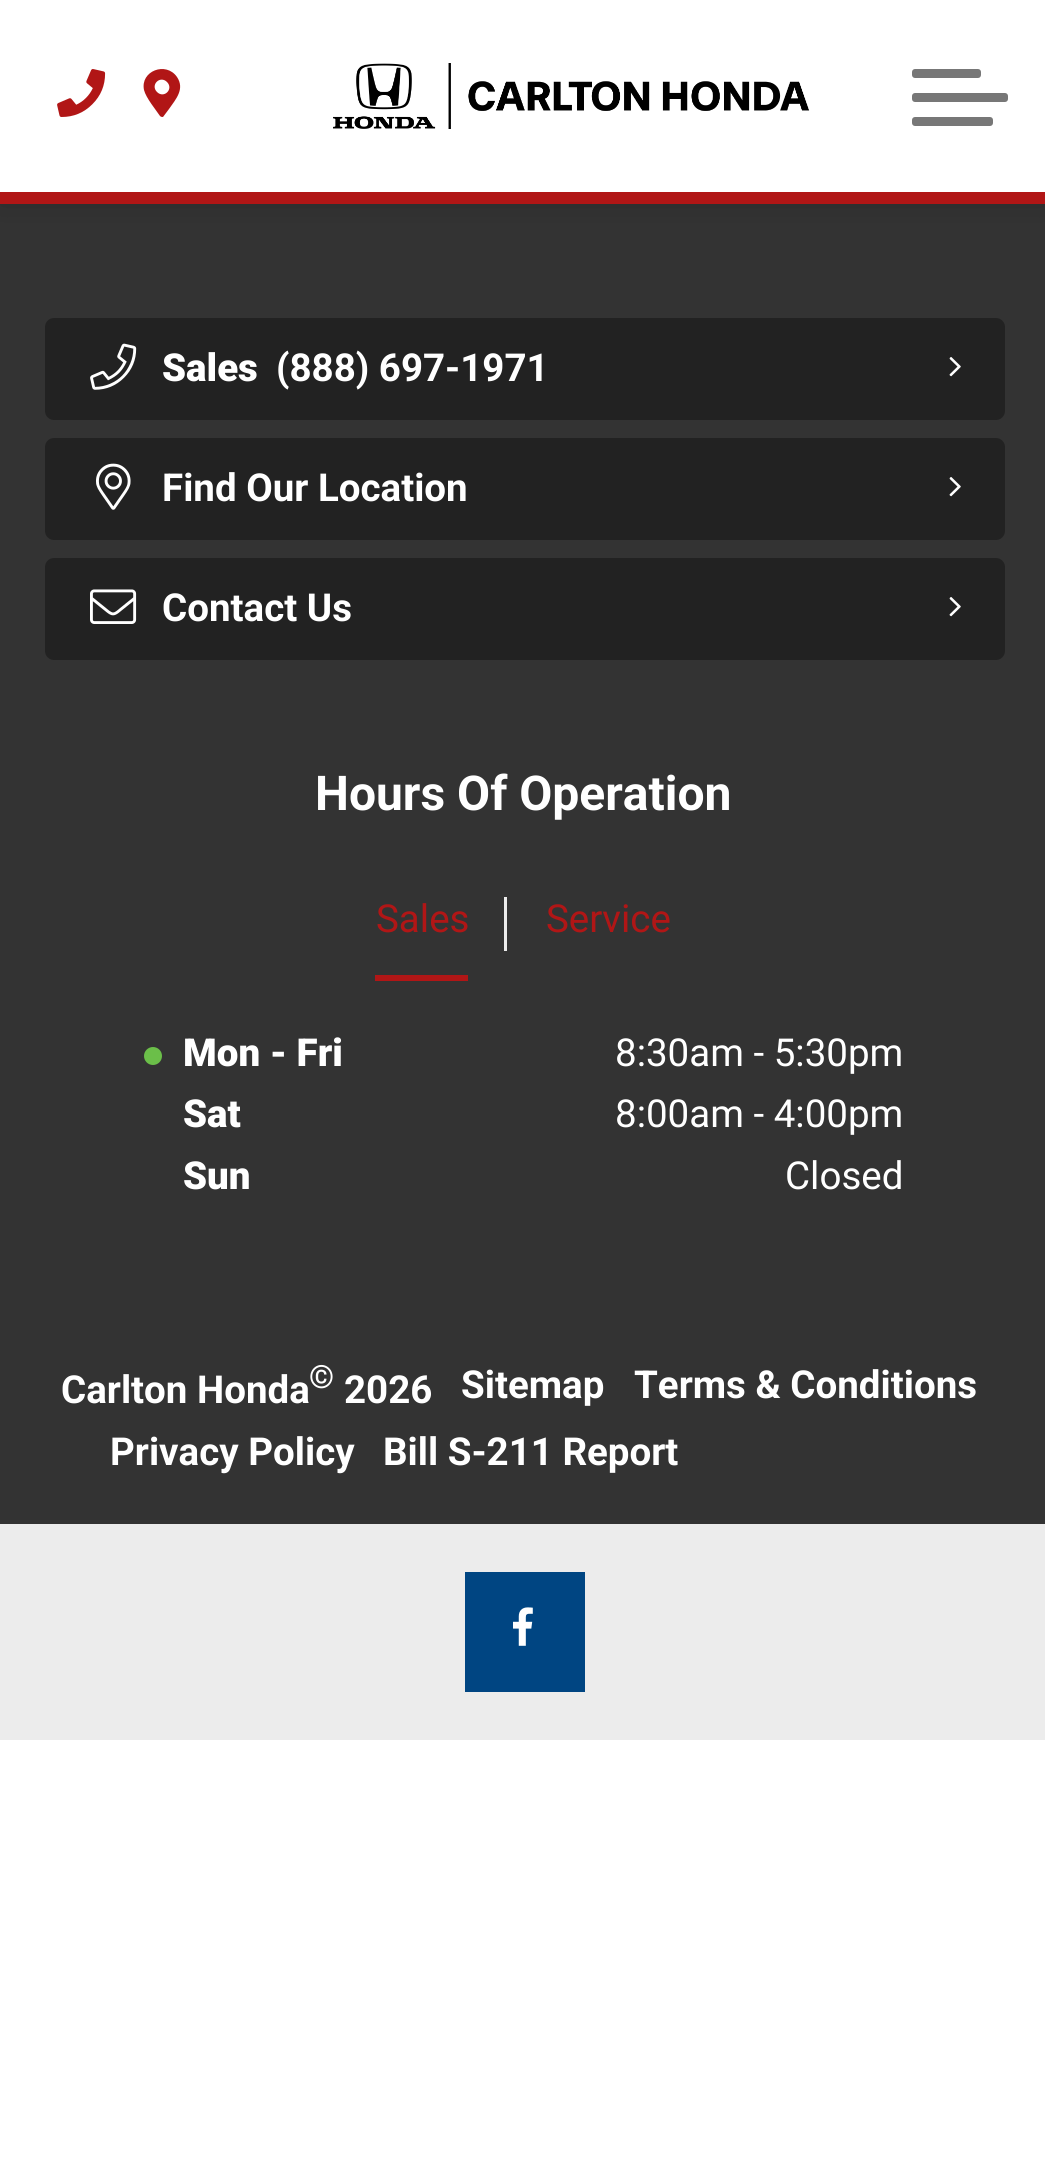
import math
import cairo

surface = cairo.ImageSurface(cairo.FORMAT_RGB24, 1045, 2165)
ctx = cairo.Context(surface)
options = cairo.FontOptions()
options.set_hint_metrics(cairo.HINT_METRICS_OFF)
options.set_hint_style(cairo.HINT_STYLE_NONE)
ctx.set_font_options(options)
ctx.set_miter_limit(4)


def set_color(code):
    ctx.set_source_rgb(*(v / 255 for v in bytes.fromhex(code[-6:])))


def draw_text(x, y, s, family, size, color, bold=False, italic=False):
    ctx.select_font_face(family, cairo.FONT_SLANT_ITALIC if italic else cairo.FONT_SLANT_NORMAL, cairo.FONT_WEIGHT_BOLD if bold else cairo.FONT_WEIGHT_NORMAL)
    ctx.set_font_size(size)
    set_color(color)
    ctx.move_to(x, y)
    ctx.show_text(s)


def fill_rect(x, y, w, h, color):
    set_color(color)
    ctx.rectangle(x, y, w, h)
    ctx.fill()


def rounded_rect(x, y, w, h, r):
    ctx.new_sub_path()
    for i, (u, v) in enumerate([(x + w - r, y + h - r), (x + r, y + h - r), (x + r, y + r), (x + w - r, y + r)]):
        ctx.arc(u, v, r, i * math.pi / 2, (i + 1) * math.pi / 2)
    ctx.close_path()


def draw_shadow(x, y, w, h, r, blur, alpha):
    ctx.push_group_with_content(cairo.CONTENT_ALPHA)
    ctx.set_operator(cairo.OPERATOR_SOURCE)
    for i in range(15, -16, -2):
        e = blur * i / 6
        if min(w, h) + 2 * e > 0:
            ctx.set_source_rgba(0, 0, 0, alpha * math.erfc((i - 1) / 8.5) / 2)
            rounded_rect(x - e, y - e, w + 2 * e, h + 2 * e, max(0, min(r + e + blur * .6, min(w, h) / 2 + e)))
            ctx.fill()
    ctx.mask(ctx.pop_group())


def draw_image(path, x, y, w, h):
    ctx.save()
    ctx.set_source_surface(cairo.ImageSurface.create_from_png(path), x, y)
    ctx.rectangle(x, y, w, h)
    ctx.fill()
    ctx.restore()


set_color("#ffffff")
ctx.paint()
fill_rect(0, 204, 1045, 1320, "#333333")
set_color("#000000")
draw_shadow(0, 9, 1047, 192, 0, 14.5, 0.2)
fill_rect(0, 0, 1045, 192, "#ffffff")
draw_image("assets/img1.png", 57, 69, 49, 48)
set_color("#b11616")
ctx.new_path()
ctx.move_to(160, 116)
ctx.curve_to(156, 110, 146, 98, 144, 90)
ctx.curve_to(140, 71, 166, 61, 177, 77)
ctx.curve_to(185, 89, 176, 99, 169, 109)
ctx.line_to(163, 117)
ctx.curve_to(162, 117, 161, 117, 160, 116)
ctx.close_path()
ctx.move_to(157, 92)
ctx.curve_to(164, 99, 174, 89, 167, 82)
ctx.curve_to(160, 75, 150, 85, 157, 92)
ctx.close_path()
ctx.fill()
draw_image("assets/img2.png", 333, 63, 477, 66)
set_color("#777777")
rounded_rect(912, 93, 96, 9, 3)
ctx.fill()
rounded_rect(912, 69, 69, 9, 3)
ctx.fill()
rounded_rect(912, 117, 81, 9, 3)
ctx.fill()
fill_rect(0, 192, 1045, 12, "#b11616")
set_color("#222222")
rounded_rect(45, 318, 960, 102, 9)
ctx.fill()
draw_image("assets/img3.png", 90, 343, 47, 47)
draw_text(162, 381, "Sales", "Roboto Black", 38.5, "#ffffff")
draw_text(276, 381, "(888) 697-1971", "Roboto", 38.5, "#ffffff", bold=True)
draw_image("assets/img4.png", 949, 357, 12, 20)
set_color("#222222")
rounded_rect(45, 438, 960, 102, 9)
ctx.fill()
draw_image("assets/img5.png", 96, 463, 35, 47)
draw_text(162, 501, "Find Our Location", "Roboto", 38.5, "#ffffff", bold=True)
draw_image("assets/img4.png", 949, 477, 12, 20)
set_color("#222222")
rounded_rect(45, 558, 960, 102, 9)
ctx.fill()
draw_image("assets/img6.png", 90, 589, 47, 35)
draw_text(162, 621, "Contact Us", "Roboto", 38.5, "#ffffff", bold=True)
draw_image("assets/img4.png", 949, 597, 12, 20)
draw_text(315, 810, "Hours Of Operation", "Roboto", 48, "#ffffff", bold=True)
fill_rect(375, 975, 93, 6, "#b11616")
draw_text(376, 932, "Sales", "Roboto", 38.5, "#b11616")
fill_rect(504, 897, 3, 54, "#ececec")
draw_text(546, 932, "Service", "Roboto", 38.5, "#b11616")
set_color("#6bbf49")
ctx.new_path()
ctx.arc(153, 1056, 9, 0, 2 * math.pi)
ctx.fill()
draw_text(183, 1066, "Mon - Fri", "Roboto Black", 38.5, "#ffffff")
draw_text(615, 1066, "8:30am - 5:30pm", "Roboto", 38.5, "#ffffff")
draw_text(183, 1127, "Sat", "Roboto Black", 38.5, "#ffffff")
draw_text(615, 1127, "8:00am - 4:00pm", "Roboto", 38.5, "#ffffff")
draw_text(183, 1189, "Sun", "Roboto Black", 38.5, "#ffffff")
draw_text(785, 1189, "Closed", "Roboto", 38.5, "#ffffff")
draw_text(61, 1403, "Carlton Honda", "Roboto", 38.5, "#ffffff", bold=True)
draw_text(309, 1388, "©", "Roboto", 32, "#ffffff", bold=True)
draw_text(344, 1403, "2026", "Roboto", 38.5, "#ffffff", bold=True)
draw_text(461, 1398, "Sitemap", "Roboto", 38.5, "#ffffff", bold=True)
draw_text(634, 1398, "Terms & Conditions", "Roboto", 38.5, "#ffffff", bold=True)
draw_text(110, 1465, "Privacy Policy", "Roboto", 38.5, "#ffffff", bold=True)
draw_text(383, 1465, "Bill S-211 Report", "Roboto", 38.5, "#ffffff", bold=True)
fill_rect(0, 1524, 1045, 216, "#ececec")
fill_rect(465, 1572, 120, 120, "#004582")
draw_image("assets/img7.png", 513, 1607, 20, 39)
surface.write_to_png("output.png")
